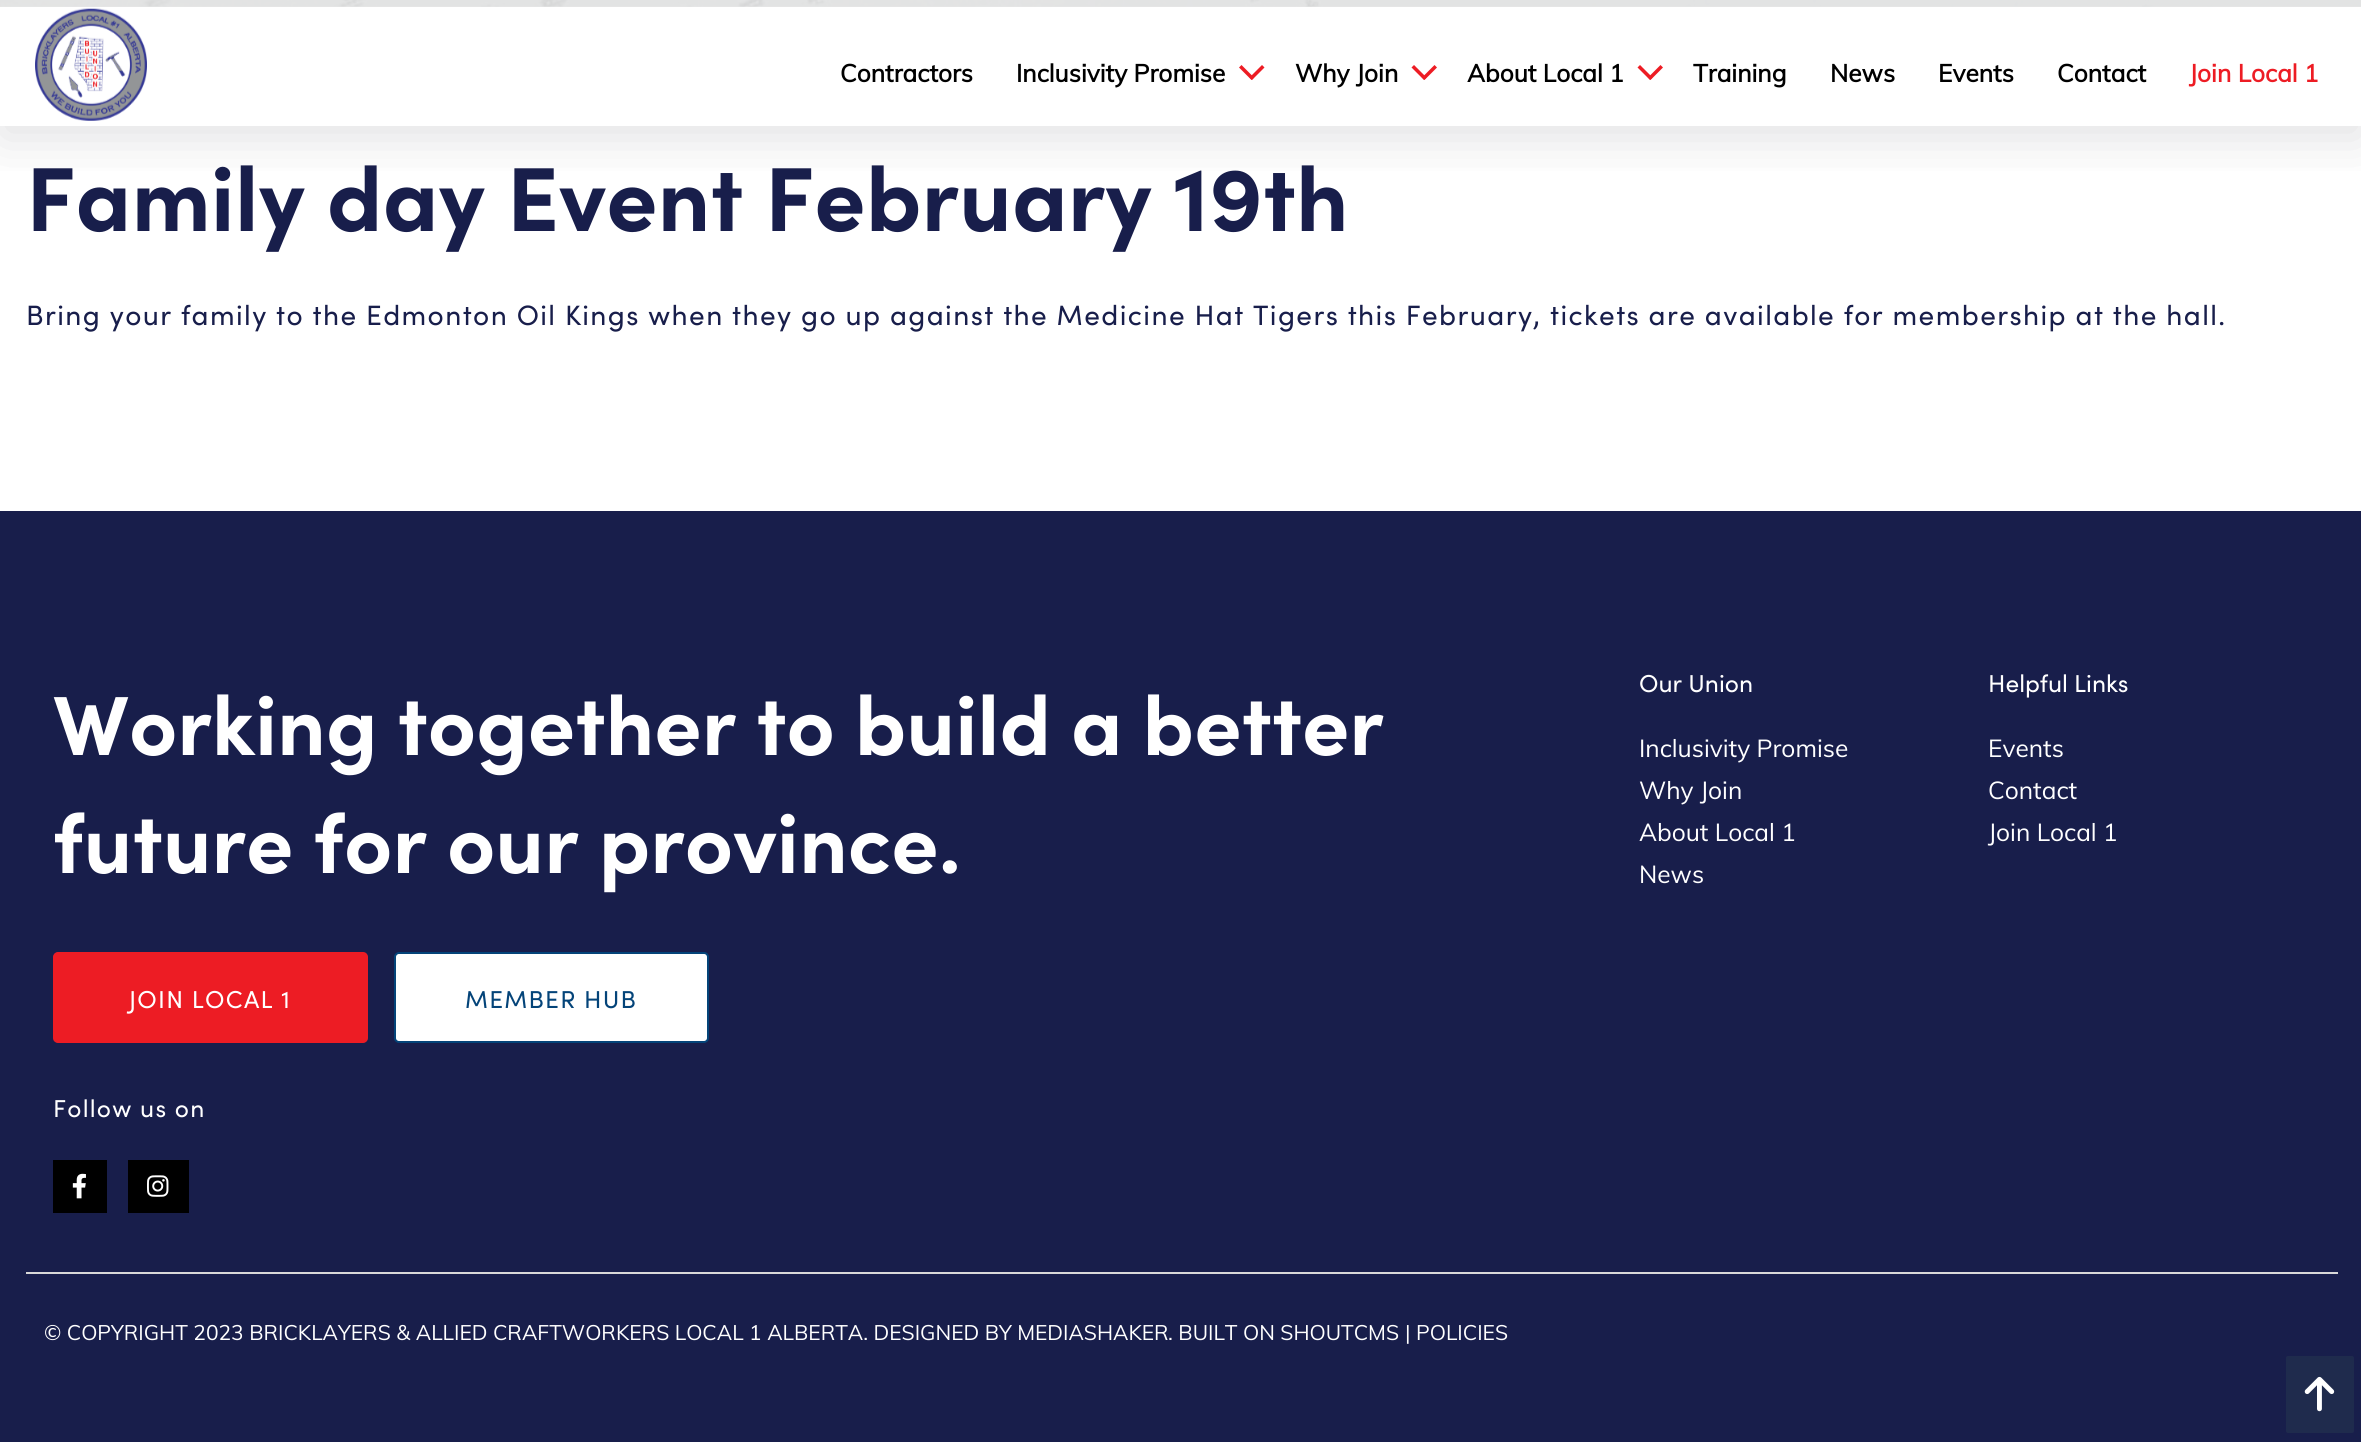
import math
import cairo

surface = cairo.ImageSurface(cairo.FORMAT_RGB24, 2361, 1442)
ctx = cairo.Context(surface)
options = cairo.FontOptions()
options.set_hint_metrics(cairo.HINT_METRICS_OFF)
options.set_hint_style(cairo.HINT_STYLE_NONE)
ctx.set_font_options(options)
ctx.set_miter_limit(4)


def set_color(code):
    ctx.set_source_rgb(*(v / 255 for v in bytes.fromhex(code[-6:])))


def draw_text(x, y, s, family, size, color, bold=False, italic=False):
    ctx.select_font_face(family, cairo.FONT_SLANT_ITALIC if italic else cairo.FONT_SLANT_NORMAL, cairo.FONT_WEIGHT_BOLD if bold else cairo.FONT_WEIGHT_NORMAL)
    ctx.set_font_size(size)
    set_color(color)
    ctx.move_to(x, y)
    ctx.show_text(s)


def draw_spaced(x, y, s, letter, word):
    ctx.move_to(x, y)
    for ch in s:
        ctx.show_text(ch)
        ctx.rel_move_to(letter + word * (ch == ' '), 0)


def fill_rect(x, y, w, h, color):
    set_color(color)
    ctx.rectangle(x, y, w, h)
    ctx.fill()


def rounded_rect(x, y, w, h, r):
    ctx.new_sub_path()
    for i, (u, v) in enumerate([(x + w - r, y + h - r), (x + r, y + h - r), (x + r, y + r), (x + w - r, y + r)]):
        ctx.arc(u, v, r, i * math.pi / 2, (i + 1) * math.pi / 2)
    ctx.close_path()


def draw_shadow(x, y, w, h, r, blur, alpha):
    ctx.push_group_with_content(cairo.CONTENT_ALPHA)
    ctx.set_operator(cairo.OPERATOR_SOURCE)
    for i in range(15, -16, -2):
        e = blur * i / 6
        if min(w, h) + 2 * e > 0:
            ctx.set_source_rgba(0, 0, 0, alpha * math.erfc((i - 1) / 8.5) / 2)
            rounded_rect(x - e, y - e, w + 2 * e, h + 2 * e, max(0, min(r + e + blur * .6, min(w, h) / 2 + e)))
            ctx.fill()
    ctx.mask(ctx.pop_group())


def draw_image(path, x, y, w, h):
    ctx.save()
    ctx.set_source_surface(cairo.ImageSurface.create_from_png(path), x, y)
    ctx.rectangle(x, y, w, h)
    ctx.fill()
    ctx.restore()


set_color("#ffffff")
ctx.paint()
fill_rect(0, 6, 2361, 1, "#e8e8e8")
draw_image("assets/img1.png", 0, 0, 2361, 7)
ctx.save()
ctx.rectangle(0, 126, 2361, 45)
ctx.clip()
set_color("#64646f")
draw_shadow(0, 12, 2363, 126, 0, 25.5, 0.2)
ctx.restore()
draw_image("assets/img2.png", 35, 8, 112, 113)
draw_text(840, 82, "Contractors", "Muli", 24.5, "#000000", bold=True)
draw_text(1016, 82, "Inclusivity Promise", "Muli", 24.5, "#000000", bold=True)
set_color("#ed1c24")
ctx.new_path()
ctx.move_to(1249.5, 77.5)
ctx.line_to(1262, 65)
ctx.line_to(1264.5, 67.5)
ctx.line_to(1252, 80)
ctx.close_path()
ctx.fill()
ctx.new_path()
ctx.move_to(1241.5, 65)
ctx.line_to(1254, 77.5)
ctx.line_to(1251.5, 80)
ctx.line_to(1239, 67.5)
ctx.close_path()
ctx.fill()
draw_text(1295, 82, "Why Join", "Muli", 24.5, "#000000", bold=True)
set_color("#ed1c24")
ctx.new_path()
ctx.move_to(1422, 77.5)
ctx.line_to(1434.5, 65)
ctx.line_to(1437, 67.5)
ctx.line_to(1424.5, 80)
ctx.close_path()
ctx.fill()
ctx.new_path()
ctx.move_to(1414, 65)
ctx.line_to(1426.5, 77.5)
ctx.line_to(1424, 80)
ctx.line_to(1411.5, 67.5)
ctx.close_path()
ctx.fill()
draw_text(1467, 82, "About Local 1", "Muli", 24.5, "#000000", bold=True)
set_color("#ed1c24")
ctx.new_path()
ctx.move_to(1648, 77.5)
ctx.line_to(1660.5, 65)
ctx.line_to(1663, 67.5)
ctx.line_to(1650.5, 80)
ctx.close_path()
ctx.fill()
ctx.new_path()
ctx.move_to(1640, 65)
ctx.line_to(1652.5, 77.5)
ctx.line_to(1650, 80)
ctx.line_to(1637.5, 67.5)
ctx.close_path()
ctx.fill()
draw_text(1693, 82, "Training", "Muli", 24.5, "#000000", bold=True)
draw_text(1830, 82, "News", "Muli", 24.5, "#000000", bold=True)
draw_text(1938, 82, "Events", "Muli", 24.5, "#000000", bold=True)
draw_text(2057, 82, "Contact", "Muli", 24.5, "#000000", bold=True)
draw_text(2189, 82, "Join Local 1", "Muli", 24.5, "#ed1c24", bold=True)
draw_text(26, 231, "Family day Event February 19th", "Sofia", 91, "#181e4b", bold=True)
ctx.select_font_face("Sofia")
ctx.set_font_size(28)
draw_spaced(26, 325, "Bring your family to the Edmonton Oil Kings when they go up against the Medicine Hat Tigers this February, tickets are available for membership at the hall.", 1.4, 0)
fill_rect(0, 511, 2361, 931, "#181e4b")
draw_text(53, 755, "Working together to build a better", "Sofia", 84, "#ffffff", bold=True)
draw_text(53, 873, "future for our province.", "Sofia", 84, "#ffffff", bold=True)
set_color("#ed1c24")
rounded_rect(54, 953, 313, 89, 4)
ctx.fill_preserve()
ctx.stroke()
ctx.select_font_face("Sofia")
ctx.set_font_size(24.5)
set_color("#ffffff")
draw_spaced(129, 1008, "JOIN LOCAL 1", 1.25, 0)
rounded_rect(395, 953, 313, 89, 4)
ctx.fill_preserve()
set_color("#044479")
ctx.stroke()
draw_spaced(465, 1008, "MEMBER HUB", 1.25, 0)
set_color("#ffffff")
draw_spaced(53, 1117, "Follow us on", 1.25, 0)
fill_rect(53, 1160, 54, 53, "#000000")
draw_image("assets/img3.png", 72, 1173, 14, 26)
fill_rect(128, 1160, 61, 53, "#000000")
draw_image("assets/img4.png", 147, 1175, 22, 22)
draw_text(1639, 692, "Our Union", "Sofia", 24.5, "#ffffff")
draw_text(1639, 757, "Inclusivity Promise", "Muli", 24.5, "#ffffff")
draw_text(1639, 799, "Why Join", "Muli", 24.5, "#ffffff")
draw_text(1639, 841, "About Local 1", "Muli", 24.5, "#ffffff")
draw_text(1639, 883, "News", "Muli", 24.5, "#ffffff")
draw_text(1988, 692, "Helpful Links", "Sofia", 24.5, "#ffffff")
draw_text(1988, 757, "Events", "Muli", 24.5, "#ffffff")
draw_text(1988, 799, "Contact", "Muli", 24.5, "#ffffff")
draw_text(1988, 841, "Join Local 1", "Muli", 24.5, "#ffffff")
fill_rect(26, 1272, 2312, 2, "#d8d8d8")
draw_text(44, 1340, "© COPYRIGHT 2023 BRICKLAYERS & ALLIED CRAFTWORKERS LOCAL 1 ALBERTA. DESIGNED BY MEDIASHAKER", "Muli", 21, "#ffffff")
draw_text(1168, 1340, ". BUILT ON SHOUTCMS", "Muli", 21, "#ffffff")
draw_text(1405, 1340, "| POLICIES", "Muli", 21, "#ffffff")
set_color("#1f2b4d")
rounded_rect(2286, 1356, 68, 77, 2)
ctx.fill()
draw_image("assets/img5.png", 2304, 1376, 31, 36)
surface.write_to_png("output.png")
